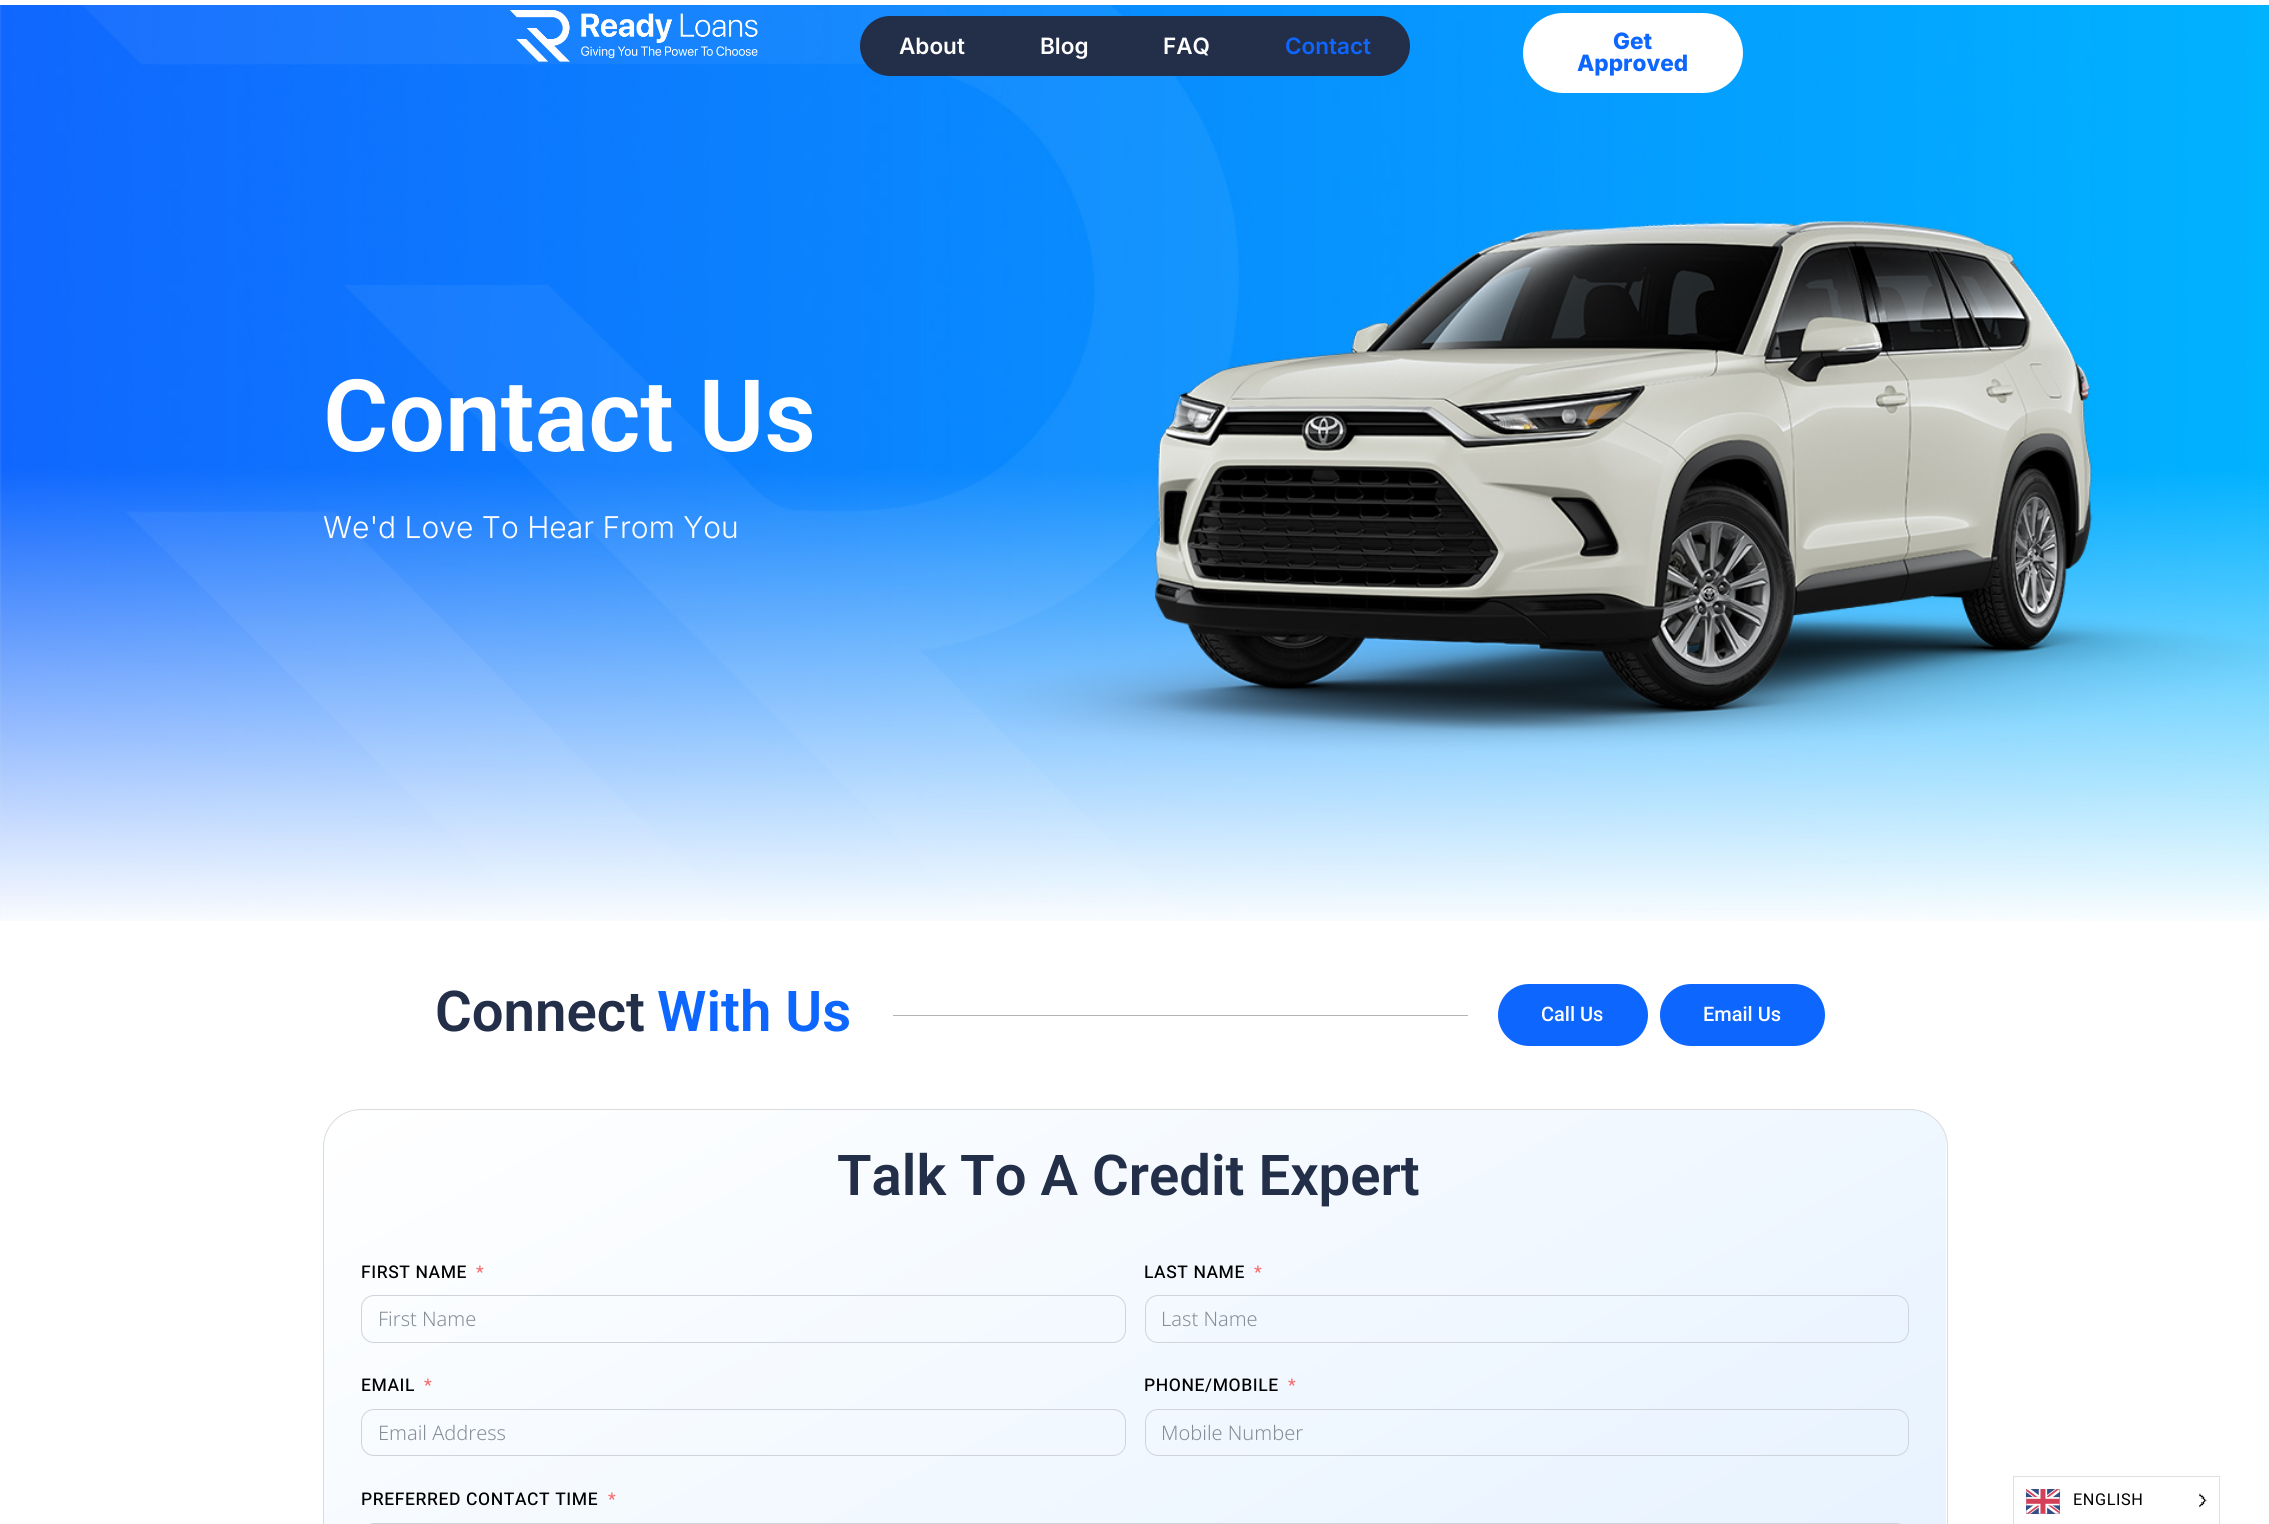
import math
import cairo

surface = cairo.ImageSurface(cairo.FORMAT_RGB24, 2269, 1524)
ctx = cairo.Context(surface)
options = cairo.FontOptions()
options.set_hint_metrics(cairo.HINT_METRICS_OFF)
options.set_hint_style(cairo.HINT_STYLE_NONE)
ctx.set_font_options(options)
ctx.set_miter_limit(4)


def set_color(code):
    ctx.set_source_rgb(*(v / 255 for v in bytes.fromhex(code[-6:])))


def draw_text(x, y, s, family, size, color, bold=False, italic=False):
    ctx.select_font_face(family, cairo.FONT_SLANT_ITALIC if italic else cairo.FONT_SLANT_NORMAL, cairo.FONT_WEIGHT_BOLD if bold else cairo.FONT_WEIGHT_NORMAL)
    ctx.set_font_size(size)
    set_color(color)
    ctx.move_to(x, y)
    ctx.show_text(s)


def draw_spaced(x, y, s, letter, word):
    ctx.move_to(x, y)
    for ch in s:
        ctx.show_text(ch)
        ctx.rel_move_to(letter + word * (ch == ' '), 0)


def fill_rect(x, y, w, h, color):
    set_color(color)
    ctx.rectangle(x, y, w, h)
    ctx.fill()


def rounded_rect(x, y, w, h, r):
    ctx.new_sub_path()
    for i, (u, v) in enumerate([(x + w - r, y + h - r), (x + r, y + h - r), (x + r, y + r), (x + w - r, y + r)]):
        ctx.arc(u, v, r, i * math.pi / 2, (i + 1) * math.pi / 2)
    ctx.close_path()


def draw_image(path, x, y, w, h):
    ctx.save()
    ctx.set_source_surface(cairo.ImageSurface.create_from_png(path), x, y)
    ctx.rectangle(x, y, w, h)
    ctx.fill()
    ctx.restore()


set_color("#ffffff")
ctx.paint()
draw_image("assets/img2.png", 0, 5, 2269, 916)
draw_image("assets/img1.png", 510, 10, 248, 52)
set_color("#232e48")
rounded_rect(860, 16, 550, 60, 30)
ctx.fill()
draw_text(899, 54, "About", "Inter SemiBold", 22.5, "#ffffff")
draw_text(1040, 54, "Blog", "Inter SemiBold", 22.5, "#ffffff")
draw_text(1163, 54, "FAQ", "Inter SemiBold", 22.5, "#ffffff")
draw_text(1285, 54, "Contact", "Inter SemiBold", 22.5, "#0d66fe")
set_color("#ffffff")
rounded_rect(1524.5, 14.5, 217, 77, 38.5)
ctx.fill_preserve()
ctx.set_line_width(3)
ctx.stroke()
draw_text(1613, 49, "Get", "Inter ExtraBold", 22.5, "#0d66fe")
draw_text(1577, 71, "Approved", "Inter ExtraBold", 22.5, "#0d66fe")
draw_text(323, 451, "Contact Us", "Roboto SemiBold", 100, "#ffffff")
draw_text(323, 538, "We'd Love To Hear From You", "Inter Light", 30, "#ffffff")
draw_text(435, 1031, "Connect", "Roboto SemiBold", 56.25, "#232e48")
draw_text(657, 1031, "With Us", "Roboto SemiBold", 56.25, "#0d66fe")
fill_rect(893, 1015, 575, 1, "#b4b4b4")
set_color("#0d66fe")
rounded_rect(1498, 984, 150, 62, 31)
ctx.fill()
draw_text(1541, 1021, "Call Us", "Roboto Medium", 20, "#ffffff")
set_color("#0d66fe")
rounded_rect(1660, 984, 165, 62, 31)
ctx.fill()
draw_text(1703, 1021, "Email Us", "Roboto Medium", 20, "#ffffff")
ctx.save()
rounded_rect(323, 1109, 1625, 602, 38)
ctx.clip()
gradient = cairo.LinearGradient(832, 840, 1438, 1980)
gradient.add_color_stop_rgba(0, 1, 1, 1, 1)
gradient.add_color_stop_rgba(1, 0.894, 0.945, 1, 1)
ctx.set_source(gradient)
ctx.rectangle(324, 1110, 1622, 414)
ctx.fill()
ctx.restore()
rounded_rect(323.5, 1109.5, 1624, 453, 37.5)
set_color("#dbdbdb")
ctx.set_line_width(1)
ctx.stroke()
draw_text(837, 1195, "Talk To A Credit Expert", "Roboto SemiBold", 56.25, "#232e48")
ctx.select_font_face("Heebo Medium")
ctx.set_font_size(17.5)
set_color("#000000")
draw_spaced(361, 1278, "FIRST NAME", 0.6, 0)
set_color("#f56c6c")
draw_spaced(476, 1278, "*", 0.6, 0)
rounded_rect(361.5, 1295.5, 764, 47, 12.5)
set_color("#ced4da")
ctx.stroke()
draw_text(378, 1326, "First Name", "Noto Sans Light", 20, "#868e96")
ctx.select_font_face("Heebo Medium")
ctx.set_font_size(17.5)
set_color("#000000")
draw_spaced(1144, 1278, "LAST NAME", 0.6, 0)
set_color("#f56c6c")
draw_spaced(1254, 1278, "*", 0.6, 0)
rounded_rect(1145.5, 1295.5, 763, 47, 12.5)
set_color("#ced4da")
ctx.stroke()
draw_text(1161, 1326, "Last Name", "Noto Sans Light", 20, "#868e96")
ctx.select_font_face("Heebo Medium")
ctx.set_font_size(17.5)
set_color("#000000")
draw_spaced(361, 1391, "EMAIL", 0.6, 0)
set_color("#f56c6c")
draw_spaced(424, 1391, "*", 0.6, 0)
rounded_rect(361.5, 1409.5, 764, 46, 12.5)
set_color("#ced4da")
ctx.stroke()
draw_text(378, 1440, "Email Address", "Noto Sans Light", 20, "#868e96")
ctx.select_font_face("Heebo Medium")
ctx.set_font_size(17.5)
set_color("#000000")
draw_spaced(1144, 1391, "PHONE/MOBILE", 0.6, 0)
set_color("#f56c6c")
draw_spaced(1288, 1391, "*", 0.6, 0)
rounded_rect(1145.5, 1409.5, 763, 46, 12.5)
set_color("#ced4da")
ctx.stroke()
draw_text(1161, 1440, "Mobile Number", "Noto Sans Light", 20, "#868e96")
ctx.select_font_face("Heebo Medium")
ctx.set_font_size(17.5)
set_color("#000000")
draw_spaced(361, 1505, "PREFERRED CONTACT TIME", 0.6, 0)
set_color("#f56c6c")
draw_spaced(608, 1505, "*", 0.6, 0)
rounded_rect(361.5, 1523.5, 1547, 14, 12.5)
set_color("#ced4da")
ctx.stroke()
ctx.rectangle(2013.5, 1476.5, 206, 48)
set_color("#e0e0e0")
ctx.stroke()
draw_image("assets/img3.png", 2026, 1489, 34, 25)
ctx.select_font_face("Heebo")
ctx.set_font_size(16.25)
set_color("#000000")
draw_spaced(2073, 1505, "ENGLISH", 0.6, 0)
draw_image("assets/img4.png", 2199, 1493, 8, 14)
surface.write_to_png("output.png")
